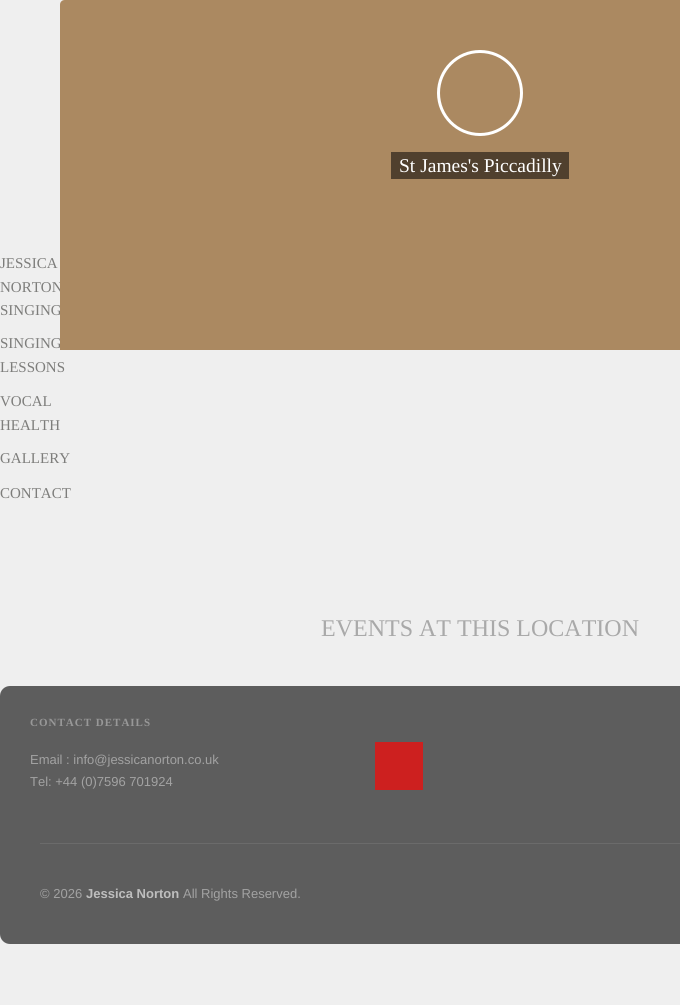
import math
import cairo

surface = cairo.ImageSurface(cairo.FORMAT_RGB24, 680, 1005)
ctx = cairo.Context(surface)
options = cairo.FontOptions()
options.set_hint_metrics(cairo.HINT_METRICS_OFF)
options.set_hint_style(cairo.HINT_STYLE_NONE)
ctx.set_font_options(options)
ctx.set_miter_limit(4)


def set_color(code):
    ctx.set_source_rgb(*(v / 255 for v in bytes.fromhex(code[-6:])))


def draw_text(x, y, s, family, size, color, bold=False, italic=False):
    ctx.select_font_face(family, cairo.FONT_SLANT_ITALIC if italic else cairo.FONT_SLANT_NORMAL, cairo.FONT_WEIGHT_BOLD if bold else cairo.FONT_WEIGHT_NORMAL)
    ctx.set_font_size(size)
    set_color(color)
    ctx.move_to(x, y)
    ctx.show_text(s)


def draw_spaced(x, y, s, letter, word):
    ctx.move_to(x, y)
    for ch in s:
        ctx.show_text(ch)
        ctx.rel_move_to(letter + word * (ch == ' '), 0)


def fill_rect(x, y, w, h, color):
    set_color(color)
    ctx.rectangle(x, y, w, h)
    ctx.fill()


def rounded_rect(x, y, w, h, r):
    ctx.new_sub_path()
    for i, (u, v) in enumerate([(x + w - r, y + h - r), (x + r, y + h - r), (x + r, y + r), (x + w - r, y + r)]):
        ctx.arc(u, v, r, i * math.pi / 2, (i + 1) * math.pi / 2)
    ctx.close_path()


set_color("#efefef")
ctx.paint()
draw_text(0, 268, "JESSICA", "Liberation Serif", 15, "#7d7d7b")
draw_text(0, 292, "NORTON", "Liberation Serif", 15, "#7d7d7b")
draw_text(0, 315, "SINGING", "Liberation Serif", 15, "#7d7d7b")
draw_text(0, 348, "SINGING", "Liberation Serif", 15, "#7d7d7b")
draw_text(0, 372, "LESSONS", "Liberation Serif", 15, "#7d7d7b")
draw_text(0, 406, "VOCAL", "Liberation Serif", 15, "#7d7d7b")
draw_text(0, 430, "HEALTH", "Liberation Serif", 15, "#7d7d7b")
draw_text(0, 463, "GALLERY", "Liberation Serif", 15, "#7d7d7b")
draw_text(0, 498, "CONTACT", "Liberation Serif", 15, "#7d7d7b")
set_color("#daa971")
ctx.new_path()
ctx.move_to(65, 0)
ctx.line_to(680, 0)
ctx.curve_to(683, 0, 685, 2, 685, 5)
ctx.line_to(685, 350)
ctx.line_to(60, 350)
ctx.line_to(60, 5)
ctx.curve_to(60, 2, 62, 0, 65, 0)
ctx.close_path()
ctx.fill()
ctx.set_source_rgba(0.239, 0.239, 0.239, 0.3)
ctx.new_path()
ctx.move_to(65, 0)
ctx.line_to(680, 0)
ctx.curve_to(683, 0, 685, 2, 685, 5)
ctx.line_to(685, 350)
ctx.line_to(60, 350)
ctx.line_to(60, 5)
ctx.curve_to(60, 2, 62, 0, 65, 0)
ctx.close_path()
ctx.fill()
ctx.arc(480, 93, 41.5, 0, 2 * math.pi)
set_color("#ffffff")
ctx.set_line_width(3)
ctx.stroke()
fill_rect(391, 152, 178, 27, "#50402e")
draw_text(399, 172, "St James's Piccadilly", "Liberation Serif", 19.5, "#ffffff")
draw_text(321, 636, "EVENTS AT THIS LOCATION", "Liberation Serif", 24, "#a9a9a9")
set_color("#5d5d5d")
rounded_rect(0, 686, 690, 258, 10)
ctx.fill()
ctx.select_font_face("Liberation Serif", cairo.FONT_SLANT_NORMAL, cairo.FONT_WEIGHT_BOLD)
ctx.set_font_size(11)
set_color("#989898")
draw_spaced(30, 726, "CONTACT DETAILS", 1, 0)
draw_text(30, 764, "Email : info@jessicanorton.co.uk", "Liberation Sans", 13, "#a2a2a2")
draw_text(30, 786, "Tel: +44 (0)7596 701924", "Liberation Sans", 13, "#a2a2a2")
fill_rect(375, 742, 48, 48, "#cd201f")
fill_rect(40, 843, 640, 1, "#6b6b6b")
draw_text(40, 898, "© 2026", "Liberation Sans", 13, "#a2a2a2")
draw_text(86, 898, "Jessica Norton", "Liberation Sans", 13, "#bebebe", bold=True)
draw_text(183, 898, "All Rights Reserved.", "Liberation Sans", 13, "#a2a2a2")
surface.write_to_png("output.png")
